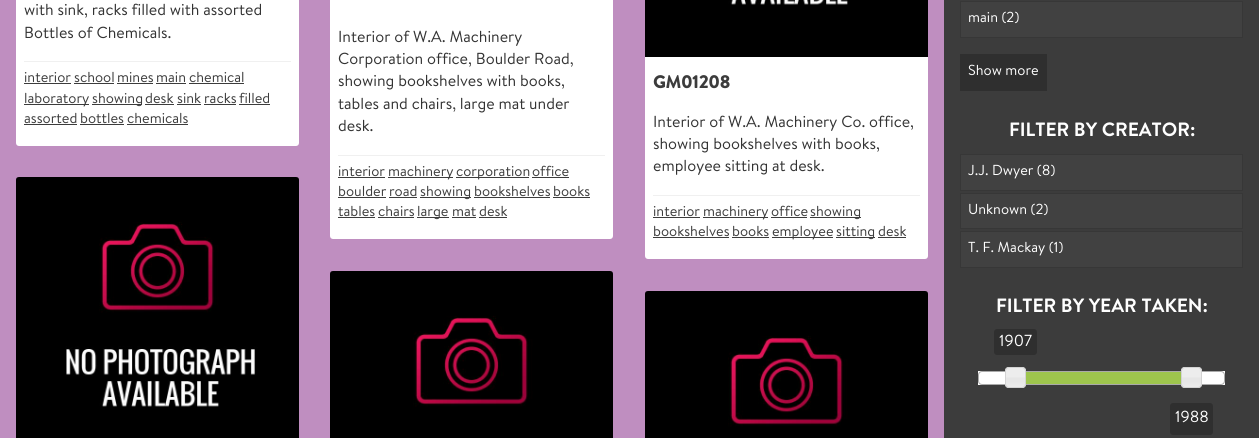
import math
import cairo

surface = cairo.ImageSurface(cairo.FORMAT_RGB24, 1259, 438)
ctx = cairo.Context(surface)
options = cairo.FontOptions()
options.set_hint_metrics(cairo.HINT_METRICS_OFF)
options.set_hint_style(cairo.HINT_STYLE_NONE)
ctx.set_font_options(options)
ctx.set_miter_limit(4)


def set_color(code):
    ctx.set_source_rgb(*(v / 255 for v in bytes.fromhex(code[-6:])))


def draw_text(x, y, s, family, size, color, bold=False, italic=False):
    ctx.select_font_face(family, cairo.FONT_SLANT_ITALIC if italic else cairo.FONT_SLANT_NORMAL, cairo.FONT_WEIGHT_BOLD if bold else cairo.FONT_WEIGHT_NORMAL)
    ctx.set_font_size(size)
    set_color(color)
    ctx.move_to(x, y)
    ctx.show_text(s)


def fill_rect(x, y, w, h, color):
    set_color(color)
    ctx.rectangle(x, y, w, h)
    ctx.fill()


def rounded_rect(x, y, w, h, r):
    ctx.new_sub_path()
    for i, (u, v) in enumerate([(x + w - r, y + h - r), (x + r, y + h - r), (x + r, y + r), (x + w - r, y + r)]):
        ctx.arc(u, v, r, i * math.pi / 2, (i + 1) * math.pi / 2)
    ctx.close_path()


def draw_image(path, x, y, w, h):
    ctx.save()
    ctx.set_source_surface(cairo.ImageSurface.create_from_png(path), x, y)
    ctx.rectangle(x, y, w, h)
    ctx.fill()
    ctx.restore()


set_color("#bf8ec0")
ctx.paint()
set_color("#ffffff")
rounded_rect(16, -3, 283, 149, 3)
ctx.fill()
draw_text(24, 15, "with sink, racks filled with assorted", "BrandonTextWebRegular", 16, "#333333")
draw_text(24, 38, "Bottles of Chemicals.", "BrandonTextWebRegular", 16, "#333333")
fill_rect(24, 61, 267, 1, "#f0f0f0")
draw_text(24, 82, "interior", "BrandonTextWebRegular", 14.5, "#3c3c3c")
fill_rect(24, 83, 47, 1, "#3c3c3c")
draw_text(74, 82, "school", "BrandonTextWebRegular", 14.5, "#3c3c3c")
fill_rect(74, 83, 40, 1, "#3c3c3c")
draw_text(117, 82, "mines", "BrandonTextWebRegular", 14.5, "#3c3c3c")
fill_rect(117, 83, 36, 1, "#3c3c3c")
draw_text(156, 82, "main", "BrandonTextWebRegular", 14.5, "#3c3c3c")
fill_rect(156, 83, 30, 1, "#3c3c3c")
draw_text(189, 82, "chemical", "BrandonTextWebRegular", 14.5, "#3c3c3c")
fill_rect(189, 83, 55, 1, "#3c3c3c")
fill_rect(24, 104, 65, 1, "#3c3c3c")
draw_text(24, 103, "laboratory", "BrandonTextWebRegular", 14.5, "#3c3c3c")
fill_rect(92, 104, 50, 1, "#3c3c3c")
draw_text(92, 103, "showing", "BrandonTextWebRegular", 14.5, "#3c3c3c")
draw_text(145, 103, "desk", "BrandonTextWebRegular", 14.5, "#3c3c3c")
fill_rect(145, 104, 29, 1, "#3c3c3c")
draw_text(177, 103, "sink", "BrandonTextWebRegular", 14.5, "#3c3c3c")
fill_rect(177, 104, 24, 1, "#3c3c3c")
draw_text(204, 103, "racks", "BrandonTextWebRegular", 14.5, "#3c3c3c")
fill_rect(204, 104, 32, 1, "#3c3c3c")
draw_text(239, 103, "filled", "BrandonTextWebRegular", 14.5, "#3c3c3c")
fill_rect(239, 104, 31, 1, "#3c3c3c")
draw_text(24, 123, "assorted", "BrandonTextWebRegular", 14.5, "#3c3c3c")
fill_rect(24, 124, 53, 1, "#3c3c3c")
draw_text(80, 123, "bottles", "BrandonTextWebRegular", 14.5, "#3c3c3c")
fill_rect(80, 124, 44, 1, "#3c3c3c")
draw_text(127, 123, "chemicals", "BrandonTextWebRegular", 14.5, "#3c3c3c")
fill_rect(127, 124, 61, 1, "#3c3c3c")
set_color("#ffffff")
rounded_rect(330, -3, 283, 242, 3)
ctx.fill()
draw_text(338, 42, "Interior of W.A. Machinery", "BrandonTextWebRegular", 16, "#333333")
draw_text(338, 64, "Corporation office, Boulder Road,", "BrandonTextWebRegular", 16, "#333333")
draw_text(338, 86, "showing bookshelves with books,", "BrandonTextWebRegular", 16, "#333333")
draw_text(338, 109, "tables and chairs, large mat under", "BrandonTextWebRegular", 16, "#333333")
draw_text(338, 131, "desk.", "BrandonTextWebRegular", 16, "#333333")
fill_rect(338, 155, 267, 1, "#f0f0f0")
draw_text(338, 176, "interior", "BrandonTextWebRegular", 14.5, "#3c3c3c")
fill_rect(338, 177, 47, 1, "#3c3c3c")
fill_rect(388, 177, 65, 1, "#3c3c3c")
draw_text(388, 176, "machinery", "BrandonTextWebRegular", 14.5, "#3c3c3c")
fill_rect(456, 177, 73, 1, "#3c3c3c")
draw_text(456, 176, "corporation", "BrandonTextWebRegular", 14.5, "#3c3c3c")
draw_text(532, 176, "office", "BrandonTextWebRegular", 14.5, "#3c3c3c")
fill_rect(532, 177, 37, 1, "#3c3c3c")
draw_text(338, 196, "boulder", "BrandonTextWebRegular", 14.5, "#3c3c3c")
fill_rect(338, 197, 48, 1, "#3c3c3c")
draw_text(389, 196, "road", "BrandonTextWebRegular", 14.5, "#3c3c3c")
fill_rect(389, 197, 28, 1, "#3c3c3c")
fill_rect(420, 197, 51, 1, "#3c3c3c")
draw_text(420, 196, "showing", "BrandonTextWebRegular", 14.5, "#3c3c3c")
draw_text(474, 196, "bookshelves", "BrandonTextWebRegular", 14.5, "#3c3c3c")
fill_rect(474, 197, 76, 1, "#3c3c3c")
draw_text(553, 196, "books", "BrandonTextWebRegular", 14.5, "#3c3c3c")
fill_rect(553, 197, 37, 1, "#3c3c3c")
draw_text(338, 216, "tables", "BrandonTextWebRegular", 14.5, "#3c3c3c")
fill_rect(338, 217, 37, 1, "#3c3c3c")
draw_text(378, 216, "chairs", "BrandonTextWebRegular", 14.5, "#3c3c3c")
fill_rect(378, 217, 36, 1, "#3c3c3c")
fill_rect(417, 217, 32, 1, "#3c3c3c")
draw_text(417, 216, "large", "BrandonTextWebRegular", 14.5, "#3c3c3c")
draw_text(452, 216, "mat", "BrandonTextWebRegular", 14.5, "#3c3c3c")
fill_rect(452, 217, 24, 1, "#3c3c3c")
draw_text(479, 216, "desk", "BrandonTextWebRegular", 14.5, "#3c3c3c")
fill_rect(479, 217, 28, 1, "#3c3c3c")
set_color("#ffffff")
rounded_rect(645, -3, 283, 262, 3)
ctx.fill()
draw_image("assets/img1.png", 645, 0, 283, 57)
draw_text(653, 88, "GM01208", "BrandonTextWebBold", 17.5, "#3c3c3c", bold=True)
draw_text(653, 127, "Interior of W.A. Machinery Co. office,", "BrandonTextWebRegular", 16, "#333333")
draw_text(653, 149, "showing bookshelves with books,", "BrandonTextWebRegular", 16, "#333333")
draw_text(653, 171, "employee sitting at desk.", "BrandonTextWebRegular", 16, "#333333")
fill_rect(653, 195, 267, 1, "#f0f0f0")
draw_text(653, 216, "interior", "BrandonTextWebRegular", 14.5, "#3c3c3c")
fill_rect(653, 217, 47, 1, "#3c3c3c")
fill_rect(703, 217, 65, 1, "#3c3c3c")
draw_text(703, 216, "machinery", "BrandonTextWebRegular", 14.5, "#3c3c3c")
draw_text(771, 216, "office", "BrandonTextWebRegular", 14.5, "#3c3c3c")
fill_rect(771, 217, 36, 1, "#3c3c3c")
fill_rect(810, 217, 51, 1, "#3c3c3c")
draw_text(810, 216, "showing", "BrandonTextWebRegular", 14.5, "#3c3c3c")
draw_text(653, 236, "bookshelves", "BrandonTextWebRegular", 14.5, "#3c3c3c")
fill_rect(653, 237, 76, 1, "#3c3c3c")
draw_text(732, 236, "books", "BrandonTextWebRegular", 14.5, "#3c3c3c")
fill_rect(732, 237, 37, 1, "#3c3c3c")
fill_rect(772, 237, 61, 1, "#3c3c3c")
draw_text(772, 236, "employee", "BrandonTextWebRegular", 14.5, "#3c3c3c")
fill_rect(836, 237, 39, 1, "#3c3c3c")
draw_text(836, 236, "sitting", "BrandonTextWebRegular", 14.5, "#3c3c3c")
draw_text(878, 236, "desk", "BrandonTextWebRegular", 14.5, "#3c3c3c")
fill_rect(878, 237, 28, 1, "#3c3c3c")
draw_image("assets/img2.png", 16, 177, 283, 261)
draw_image("assets/img3.png", 330, 271, 283, 167)
draw_image("assets/img4.png", 645, 291, 283, 147)
fill_rect(944, 0, 315, 438, "#3c3c3c")
set_color("#414141")
ctx.rectangle(960.5, 1.5, 282, 36)
ctx.fill_preserve()
set_color("#373737")
ctx.set_line_width(1)
ctx.stroke()
draw_text(968, 22, "main (2)", "BrandonTextWebRegular", 14.5, "#ffffff")
fill_rect(960, 54, 87, 37, "#2f2f2f")
draw_text(968, 75, "Show more", "BrandonTextWebRegular", 14.5, "#ffffff")
draw_text(1009, 136, "FILTER BY CREATOR:", "BrandonTextWebBold", 19.25, "#ffffff")
set_color("#414141")
ctx.rectangle(960.5, 154.5, 282, 36)
ctx.fill_preserve()
set_color("#373737")
ctx.stroke()
draw_text(968, 175, "J.J. Dwyer (8)", "BrandonTextWebRegular", 14.5, "#ffffff")
set_color("#414141")
ctx.rectangle(960.5, 193.5, 282, 35)
ctx.fill_preserve()
set_color("#373737")
ctx.stroke()
draw_text(968, 214, "Unknown (2)", "BrandonTextWebRegular", 14.5, "#ffffff")
set_color("#414141")
ctx.rectangle(960.5, 231.5, 282, 36)
ctx.fill_preserve()
set_color("#373737")
ctx.stroke()
draw_text(968, 252, "T. F. Mackay (1)", "BrandonTextWebRegular", 14.5, "#ffffff")
draw_text(996, 312, "FILTER BY YEAR TAKEN:", "BrandonTextWebBold", 19.25, "#ffffff")
set_color("#2f2f2f")
rounded_rect(994, 329, 43, 26, 3)
ctx.fill()
draw_text(999, 346, "1907", "BrandonTextWebRegular", 16, "#ffffff")
fill_rect(978, 371, 247, 14, "#ffffff")
rounded_rect(978.5, 371.5, 246, 13, 3.5)
set_color("#aaaaaa")
ctx.stroke()
draw_image("assets/img5.png", 1005, 367, 21, 21)
rounded_rect(1005.5, 367.5, 20, 20, 3.5)
set_color("#d3d3d3")
ctx.stroke()
fill_rect(1026, 372, 155, 12, "#9ec54d")
draw_image("assets/img5.png", 1181, 367, 21, 21)
rounded_rect(1181.5, 367.5, 20, 20, 3.5)
set_color("#d3d3d3")
ctx.stroke()
set_color("#2f2f2f")
rounded_rect(1170, 403, 43, 32, 3)
ctx.fill()
draw_text(1175, 422, "1988", "BrandonTextWebRegular", 16, "#ffffff")
surface.write_to_png("output.png")
